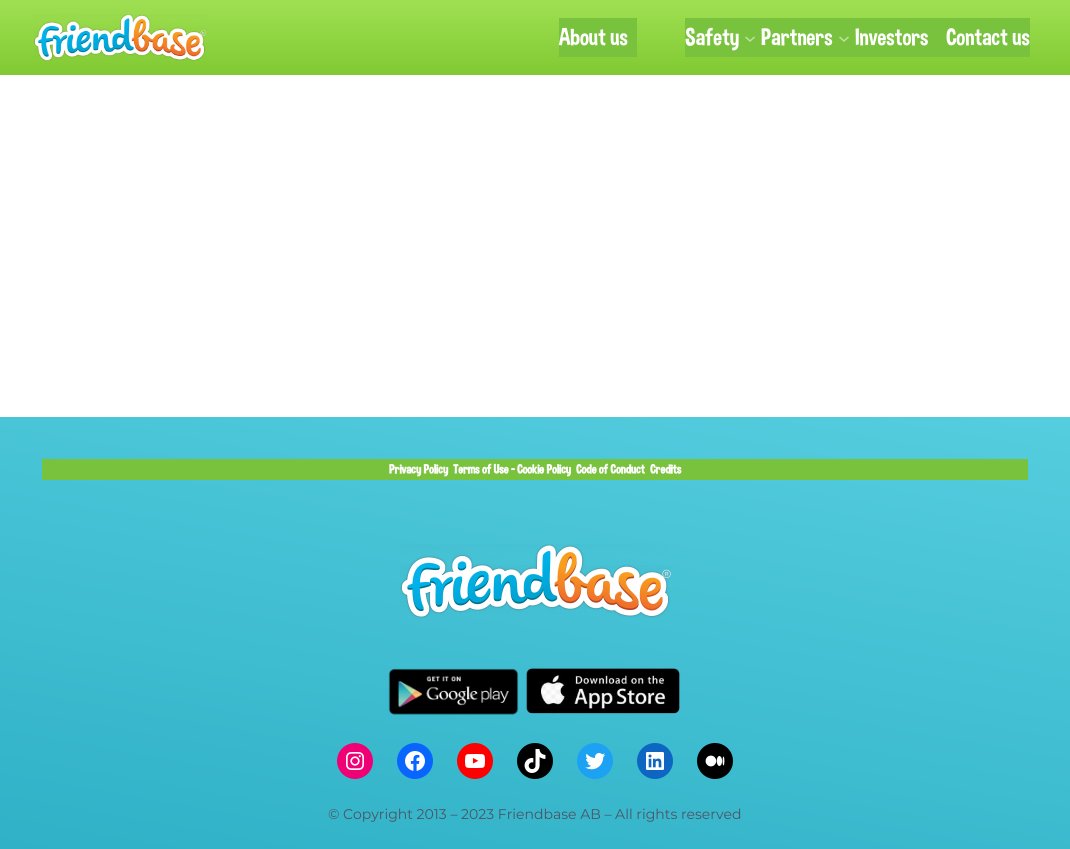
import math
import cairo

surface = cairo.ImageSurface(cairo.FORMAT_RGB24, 1070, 849)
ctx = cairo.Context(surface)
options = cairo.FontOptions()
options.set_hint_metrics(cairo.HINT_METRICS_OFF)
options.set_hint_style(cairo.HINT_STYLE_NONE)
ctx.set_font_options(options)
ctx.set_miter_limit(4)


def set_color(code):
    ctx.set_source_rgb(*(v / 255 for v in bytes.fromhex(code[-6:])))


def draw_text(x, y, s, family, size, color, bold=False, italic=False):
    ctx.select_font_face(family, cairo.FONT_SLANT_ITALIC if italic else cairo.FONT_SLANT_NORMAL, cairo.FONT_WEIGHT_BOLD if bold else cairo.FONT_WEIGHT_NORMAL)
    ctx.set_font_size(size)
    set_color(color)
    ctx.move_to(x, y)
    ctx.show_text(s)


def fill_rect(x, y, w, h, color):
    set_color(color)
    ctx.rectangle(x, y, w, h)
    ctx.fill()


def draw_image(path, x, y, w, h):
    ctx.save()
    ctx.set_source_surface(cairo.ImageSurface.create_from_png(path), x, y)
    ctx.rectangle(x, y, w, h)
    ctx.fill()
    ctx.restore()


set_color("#ffffff")
ctx.paint()
gradient = cairo.LinearGradient(535, 75, 535, 0)
gradient.add_color_stop_rgba(0.01, 0.506, 0.792, 0.2, 1)
gradient.add_color_stop_rgba(1, 0.624, 0.878, 0.322, 1)
ctx.set_source(gradient)
ctx.rectangle(0, 0, 1070, 75)
ctx.fill()
draw_image("assets/img1.png", 34, 14, 172, 47)
fill_rect(559, 18, 78, 39, "#79c23e")
draw_text(559, 46, "About us", "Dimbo", 24, "#ffffff")
fill_rect(685, 18, 345, 39, "#79c23e")
draw_text(685, 46, "Safety", "Dimbo", 24, "#ffffff")
ctx.new_path()
ctx.move_to(745.5, 37)
ctx.line_to(750, 41)
ctx.line_to(754.5, 37)
set_color("#bce19f")
ctx.set_line_width(1.5)
ctx.stroke()
draw_text(761, 46, "Partners", "Dimbo", 24, "#ffffff")
ctx.new_path()
ctx.move_to(839.5, 37)
ctx.line_to(844, 41)
ctx.line_to(848.5, 37)
set_color("#bce19f")
ctx.stroke()
draw_text(855, 46, "Investors", "Dimbo", 24, "#ffffff")
draw_text(946, 46, "Contact us", "Dimbo", 24, "#ffffff")
gradient = cairo.LinearGradient(482, 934, 588, 332)
gradient.add_color_stop_rgba(0, 0.188, 0.694, 0.78, 1)
gradient.add_color_stop_rgba(0.98, 0.329, 0.804, 0.871, 1)
ctx.set_source(gradient)
ctx.rectangle(0, 417, 1070, 432)
ctx.fill()
fill_rect(42, 459, 986, 21, "#79c23e")
draw_text(389, 474, "Privacy Policy", "Dimbo", 13, "#ffffff", bold=True)
draw_text(453, 474, "Terms of Use – Cookie Policy", "Dimbo", 13, "#ffffff", bold=True)
draw_text(576, 474, "Code of Conduct", "Dimbo", 13, "#ffffff", bold=True)
draw_text(650, 474, "Credits", "Dimbo", 13, "#ffffff", bold=True)
draw_image("assets/img2.png", 400, 544, 271, 74)
draw_image("assets/img3.png", 388, 668, 131, 47)
draw_image("assets/img4.png", 526, 668, 154, 46)
set_color("#f00075")
ctx.arc(355, 761, 18, 0, 2 * math.pi)
ctx.fill()
draw_image("assets/img5.png", 346, 752, 18, 18)
set_color("#0866ff")
ctx.arc(415, 761, 18, 0, 2 * math.pi)
ctx.fill()
draw_image("assets/img6.png", 405, 751, 20, 20)
set_color("#ff0000")
ctx.arc(475, 761, 18, 0, 2 * math.pi)
ctx.fill()
draw_image("assets/img7.png", 465, 754, 20, 14)
set_color("#000000")
ctx.arc(535, 761, 18, 0, 2 * math.pi)
ctx.fill()
draw_image("assets/img8.png", 524, 749, 22, 24)
set_color("#1da1f2")
ctx.arc(595, 761, 18, 0, 2 * math.pi)
ctx.fill()
draw_image("assets/img9.png", 585, 753, 20, 17)
set_color("#0d66c2")
ctx.arc(655, 761, 18, 0, 2 * math.pi)
ctx.fill()
draw_image("assets/img10.png", 646, 752, 18, 18)
set_color("#000000")
ctx.arc(715, 761, 18, 0, 2 * math.pi)
ctx.fill()
draw_image("assets/img11.png", 705, 755, 20, 12)
draw_text(328, 819, "© Copyright 2013 – 2023 Friendbase AB – All rights reserved", "Montserrat", 14, "#4b5563")
surface.write_to_png("output.png")
